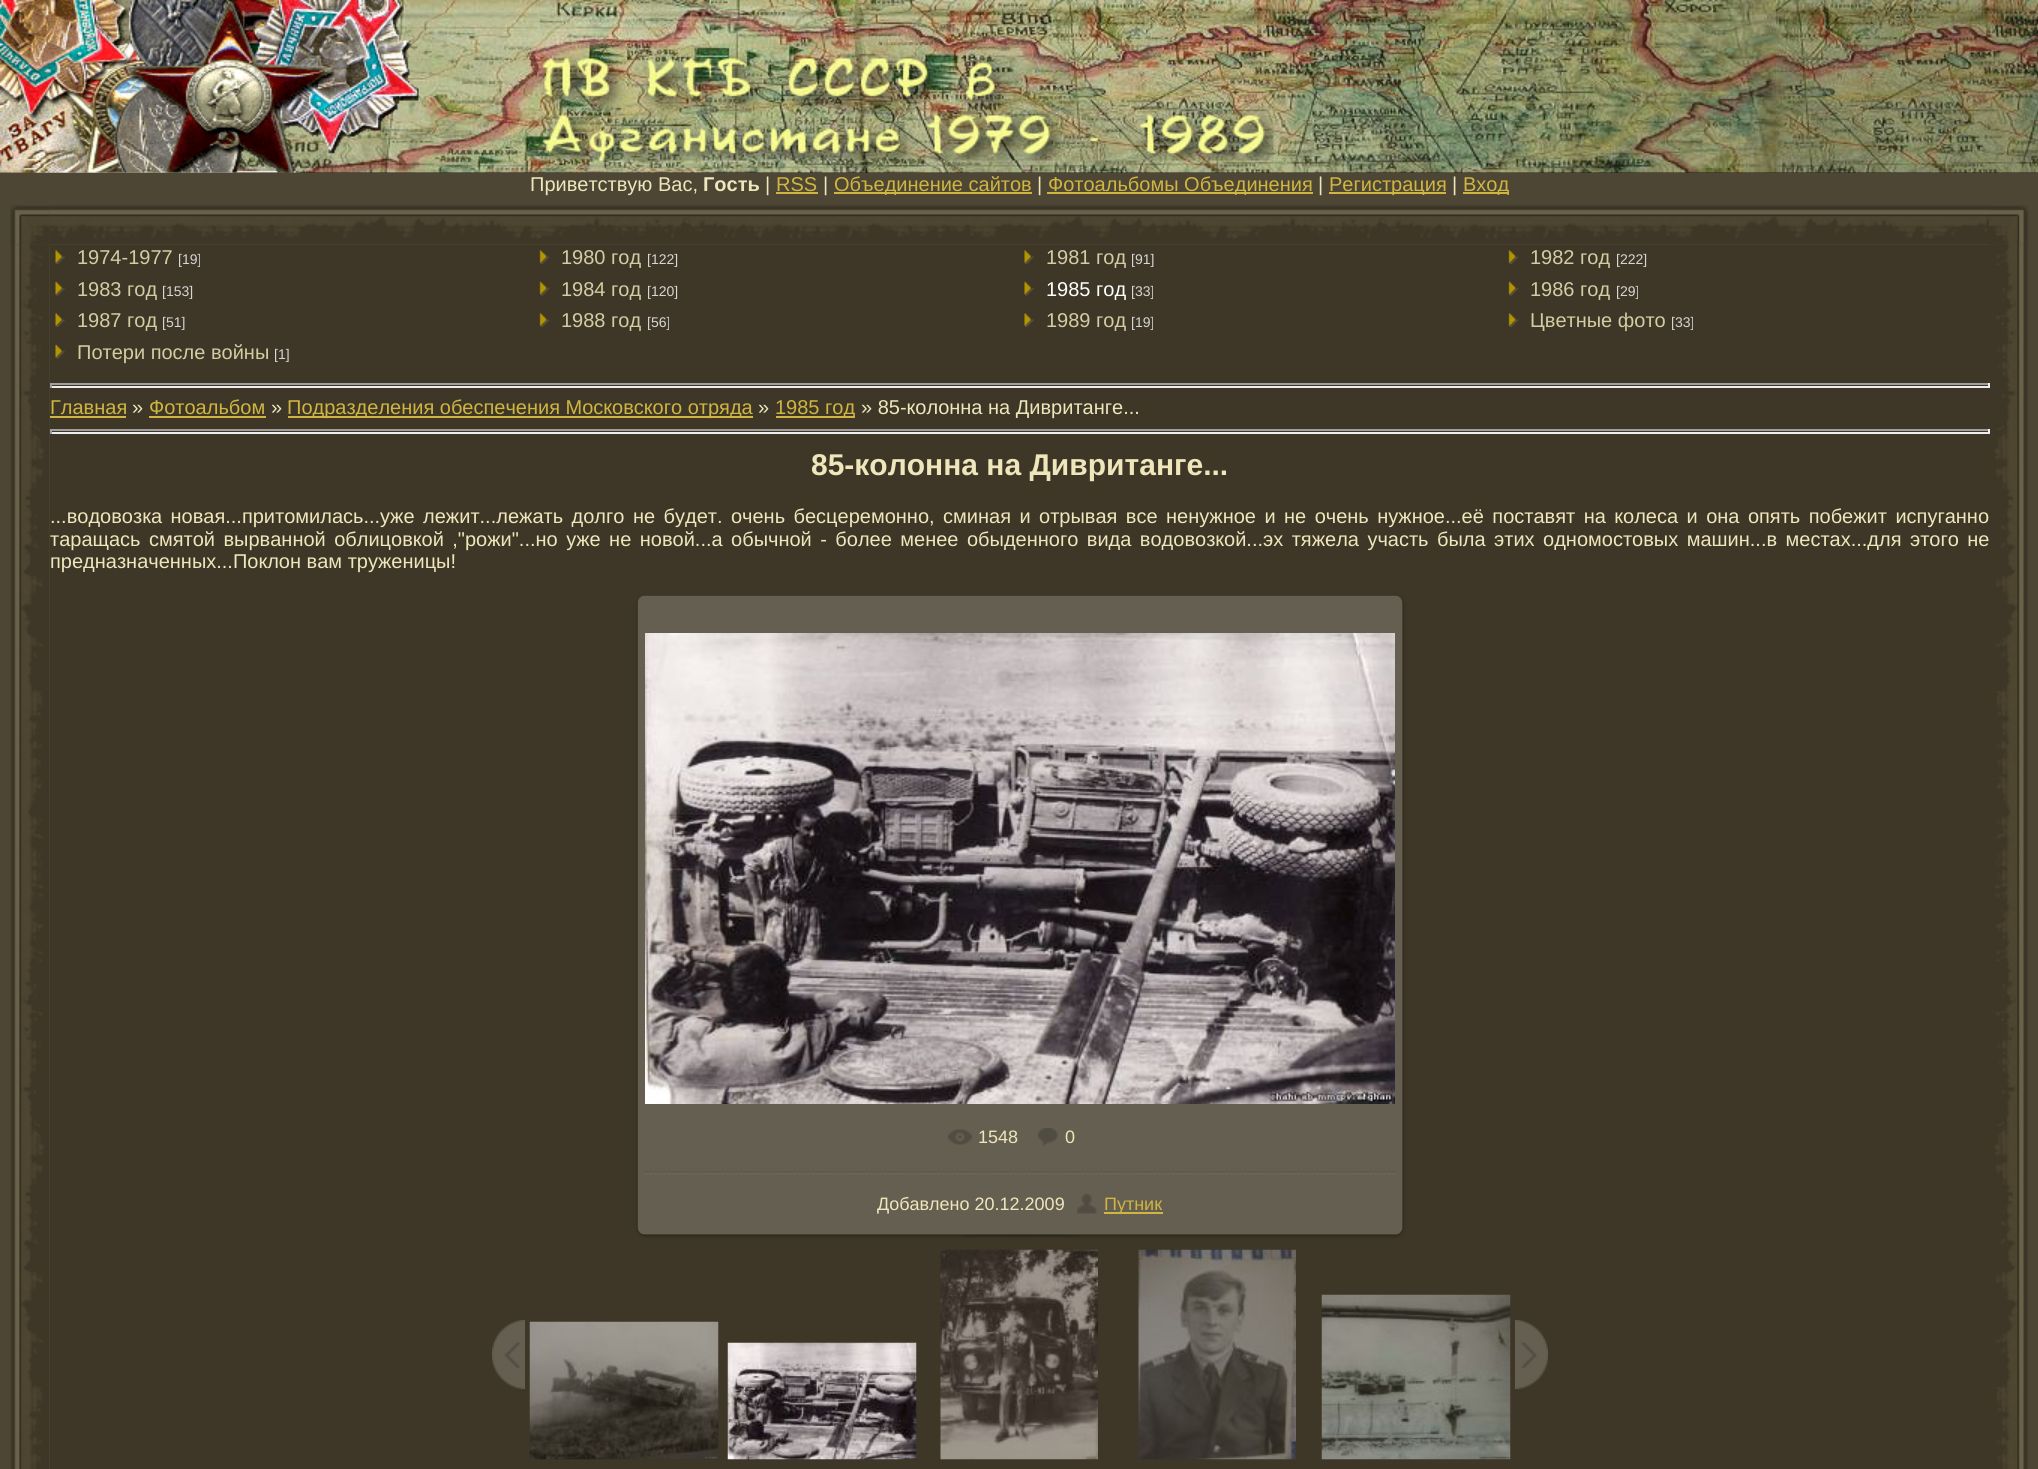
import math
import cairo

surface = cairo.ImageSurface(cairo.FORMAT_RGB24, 2038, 1469)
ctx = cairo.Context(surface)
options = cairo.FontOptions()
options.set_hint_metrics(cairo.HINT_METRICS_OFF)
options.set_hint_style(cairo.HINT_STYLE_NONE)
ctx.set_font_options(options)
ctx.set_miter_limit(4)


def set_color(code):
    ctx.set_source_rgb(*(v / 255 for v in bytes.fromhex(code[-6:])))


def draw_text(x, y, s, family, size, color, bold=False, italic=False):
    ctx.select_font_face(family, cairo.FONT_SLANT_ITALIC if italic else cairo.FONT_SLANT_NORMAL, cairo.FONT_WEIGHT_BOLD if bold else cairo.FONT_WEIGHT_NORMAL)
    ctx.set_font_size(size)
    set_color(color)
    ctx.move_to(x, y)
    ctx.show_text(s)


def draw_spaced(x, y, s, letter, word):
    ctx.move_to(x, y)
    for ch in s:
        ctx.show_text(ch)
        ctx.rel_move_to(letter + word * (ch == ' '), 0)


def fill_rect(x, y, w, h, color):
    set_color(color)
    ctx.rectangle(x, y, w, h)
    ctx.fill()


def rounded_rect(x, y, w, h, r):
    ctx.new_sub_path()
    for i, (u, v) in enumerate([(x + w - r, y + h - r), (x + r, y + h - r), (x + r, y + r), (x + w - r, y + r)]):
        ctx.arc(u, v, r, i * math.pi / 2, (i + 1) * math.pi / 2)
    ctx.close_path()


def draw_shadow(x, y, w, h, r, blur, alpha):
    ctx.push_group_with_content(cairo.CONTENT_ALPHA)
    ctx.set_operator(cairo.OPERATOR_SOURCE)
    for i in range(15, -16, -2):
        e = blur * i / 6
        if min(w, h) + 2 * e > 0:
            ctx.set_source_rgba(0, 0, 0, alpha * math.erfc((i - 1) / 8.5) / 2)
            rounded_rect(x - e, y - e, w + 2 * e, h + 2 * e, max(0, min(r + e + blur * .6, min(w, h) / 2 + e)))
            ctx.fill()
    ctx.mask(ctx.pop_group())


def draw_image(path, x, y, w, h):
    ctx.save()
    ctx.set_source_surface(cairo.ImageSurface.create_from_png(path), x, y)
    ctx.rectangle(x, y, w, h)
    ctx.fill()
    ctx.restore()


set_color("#4d4635")
ctx.paint()
fill_rect(0, 172, 2038, 1, "#1e1715")
draw_image("assets/img1.png", 0, 0, 2038, 173)
draw_image("assets/img2.png", 0, 0, 419, 173)
draw_text(530, 191, "Приветствую Вас,", "Liberation Sans", 20, "#efe6bb")
draw_text(703, 191, "Гость", "Liberation Sans", 20, "#efe6bb", bold=True)
draw_text(765, 191, "|", "Liberation Sans", 20, "#efe6bb")
draw_text(776, 191, "RSS", "Liberation Sans", 20, "#d0b541")
fill_rect(776, 192, 42, 2, "#d0b541")
draw_text(823, 191, "|", "Liberation Sans", 20, "#efe6bb")
fill_rect(834, 192, 198, 2, "#d0b541")
draw_text(834, 191, "Объединение сайтов", "Liberation Sans", 20, "#d0b541")
draw_text(1037, 191, "|", "Liberation Sans", 20, "#efe6bb")
fill_rect(1047, 192, 266, 2, "#d0b541")
draw_text(1048, 191, "Фотоальбомы Объединения", "Liberation Sans", 20, "#d0b541")
draw_text(1318, 191, "|", "Liberation Sans", 20, "#efe6bb")
fill_rect(1329, 192, 117, 2, "#d0b541")
draw_text(1329, 191, "Регистрация", "Liberation Sans", 20, "#d0b541")
draw_text(1452, 191, "|", "Liberation Sans", 20, "#efe6bb")
fill_rect(1463, 192, 46, 2, "#d0b541")
draw_text(1463, 191, "Вход", "Liberation Sans", 20, "#d0b541")
draw_image("assets/img4.png", 49, 205, 1940, 40)
draw_image("assets/img6.png", 10, 244, 40, 1225)
draw_image("assets/img3.png", 10, 205, 40, 40)
draw_image("assets/img25.png", 1989, 244, 40, 1225)
draw_image("assets/img5.png", 1989, 205, 40, 40)
fill_rect(50, 245, 1939, 1224, "#3e3727")
draw_image("assets/img7.png", 55, 250, 10, 14)
draw_text(77, 264, "1974-1977", "Liberation Sans", 20, "#d5cca3")
draw_text(178, 264, "[19]", "Liberation Sans", 14, "#d8d5d5")
draw_image("assets/img8.png", 539, 250, 11, 14)
draw_text(561, 264, "1980 год", "Liberation Sans", 20, "#d5cca3")
draw_text(647, 264, "[122]", "Liberation Sans", 14, "#d8d5d5")
draw_image("assets/img7.png", 1024, 250, 10, 14)
draw_text(1046, 264, "1981 год", "Liberation Sans", 20, "#d5cca3")
draw_text(1131, 264, "[91]", "Liberation Sans", 14, "#d8d5d5")
draw_image("assets/img8.png", 1508, 250, 11, 14)
draw_text(1530, 264, "1982 год", "Liberation Sans", 20, "#d5cca3")
draw_text(1616, 264, "[222]", "Liberation Sans", 14, "#d8d5d5")
draw_image("assets/img9.png", 55, 281, 10, 15)
draw_text(77, 296, "1983 год", "Liberation Sans", 20, "#d5cca3")
draw_text(162, 296, "[153]", "Liberation Sans", 14, "#d8d5d5")
draw_image("assets/img10.png", 539, 281, 11, 15)
draw_text(561, 296, "1984 год", "Liberation Sans", 20, "#d5cca3")
draw_text(647, 296, "[120]", "Liberation Sans", 14, "#d8d5d5")
draw_image("assets/img9.png", 1024, 281, 10, 15)
draw_text(1046, 296, "1985 год", "Liberation Sans", 20, "#ffffff")
draw_text(1131, 296, "[33]", "Liberation Sans", 14, "#d8d5d5")
draw_image("assets/img10.png", 1508, 281, 11, 15)
draw_text(1530, 296, "1986 год", "Liberation Sans", 20, "#d5cca3")
draw_text(1616, 296, "[29]", "Liberation Sans", 14, "#d8d5d5")
draw_image("assets/img7.png", 55, 313, 10, 14)
draw_text(77, 327, "1987 год", "Liberation Sans", 20, "#d5cca3")
draw_text(162, 327, "[51]", "Liberation Sans", 14, "#d8d5d5")
draw_image("assets/img8.png", 539, 313, 11, 14)
draw_text(561, 327, "1988 год", "Liberation Sans", 20, "#d5cca3")
draw_text(647, 327, "[56]", "Liberation Sans", 14, "#d8d5d5")
draw_image("assets/img7.png", 1024, 313, 10, 14)
draw_text(1046, 327, "1989 год", "Liberation Sans", 20, "#d5cca3")
draw_text(1131, 327, "[19]", "Liberation Sans", 14, "#d8d5d5")
draw_image("assets/img8.png", 1508, 313, 11, 14)
draw_text(1530, 327, "Цветные фото", "Liberation Sans", 20, "#d5cca3")
draw_text(1671, 327, "[33]", "Liberation Sans", 14, "#d8d5d5")
draw_image("assets/img9.png", 55, 344, 10, 15)
draw_text(77, 359, "Потери после войны", "Liberation Sans", 20, "#d5cca3")
draw_text(274, 359, "[1]", "Liberation Sans", 14, "#d8d5d5")
fill_rect(50, 383, 1939, 2, "#9f9f9f")
fill_rect(1988, 383, 2, 5, "#eeeeee")
fill_rect(50, 386, 1939, 2, "#eeeeee")
fill_rect(50, 383, 2, 5, "#9f9f9f")
draw_text(50, 414, "Главная", "Liberation Sans", 20, "#d0b541")
fill_rect(50, 416, 76, 2, "#d0b541")
draw_text(132, 414, "»", "Liberation Sans", 20, "#efe6bb")
draw_text(149, 414, "Фотоальбом", "Liberation Sans", 20, "#d0b541")
fill_rect(149, 416, 117, 2, "#d0b541")
draw_text(271, 414, "»", "Liberation Sans", 20, "#efe6bb")
fill_rect(288, 416, 465, 2, "#d0b541")
draw_text(287, 414, "Подразделения обеспечения Московского отряда", "Liberation Sans", 20, "#d0b541")
draw_text(758, 414, "»", "Liberation Sans", 20, "#efe6bb")
fill_rect(776, 416, 79, 2, "#d0b541")
draw_text(775, 414, "1985 год", "Liberation Sans", 20, "#d0b541")
draw_text(861, 414, "» 85-колонна на Дивританге...", "Liberation Sans", 20, "#efe6bb")
fill_rect(50, 429, 1939, 2, "#9f9f9f")
fill_rect(1988, 429, 2, 5, "#eeeeee")
fill_rect(50, 432, 1939, 2, "#eeeeee")
fill_rect(50, 429, 2, 5, "#9f9f9f")
draw_text(811, 475, "85-колонна на Дивританге...", "Liberation Sans", 30, "#efe6bb", bold=True)
ctx.select_font_face("Liberation Sans")
ctx.set_font_size(20)
draw_spaced(50, 523, "...водовозка новая...притомилась...уже лежит...лежать долго не будет. очень бесцеремонно, сминая и отрывая все ненужное и не очень нужное...её поставят на колеса и она опять побежит испуганно", 0, 2.9)
draw_spaced(50, 546, "таращась смятой вырванной облицовкой ,\"рожи\"...но уже не новой...а обычной - более менее обыденного вида водовозкой...эх тяжела участь была этих одномостовых машин...в местах...для этого не", 0, 2.9)
draw_text(50, 568, "предназначенных...Поклон вам труженицы!", "Liberation Sans", 20, "#efe6bb")
ctx.save()
ctx.set_fill_rule(cairo.FILL_RULE_EVEN_ODD)
ctx.new_path()
ctx.move_to(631, 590)
ctx.line_to(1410, 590)
ctx.line_to(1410, 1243)
ctx.line_to(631, 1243)
ctx.close_path()
ctx.move_to(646, 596)
ctx.line_to(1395, 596)
ctx.curve_to(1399.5, 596, 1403, 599.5, 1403, 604)
ctx.line_to(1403, 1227)
ctx.curve_to(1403, 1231.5, 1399.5, 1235, 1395, 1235)
ctx.line_to(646, 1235)
ctx.curve_to(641.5, 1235, 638, 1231.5, 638, 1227)
ctx.line_to(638, 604)
ctx.curve_to(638, 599.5, 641.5, 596, 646, 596)
ctx.close_path()
ctx.clip()
set_color("#000000")
draw_shadow(638, 597, 765, 639, 8, 2, 0.37)
ctx.restore()
draw_image("assets/img11.png", 637, 595, 766, 640)
draw_image("assets/img12.png", 645, 633, 750, 471)
draw_image("assets/img13.png", 948, 1129, 24, 16)
draw_text(978, 1143, "1548", "Liberation Sans", 18, "#efe6bb")
draw_image("assets/img14.png", 1038, 1128, 20, 18)
draw_text(1065, 1143, "0", "Liberation Sans", 18, "#efe6bb")
draw_image("assets/img15.png", 645, 1171, 750, 4)
draw_text(877, 1210, "Добавлено 20.12.2009", "Liberation Sans", 18, "#efe6bb")
draw_image("assets/img16.png", 1077, 1194, 20, 20)
fill_rect(1104, 1212, 59, 2, "#d0b541")
draw_text(1104, 1210, "Путник", "Liberation Sans", 18, "#d0b541")
draw_image("assets/img17.png", 963, 1234, 116, 3)
draw_image("assets/img18.png", 492, 1320, 33, 69)
draw_image("assets/img19.png", 529, 1321, 190, 139)
draw_image("assets/img20.png", 727, 1342, 190, 118)
draw_image("assets/img21.png", 940, 1249, 158, 211)
draw_image("assets/img22.png", 1138, 1249, 158, 211)
draw_image("assets/img23.png", 1321, 1294, 190, 166)
draw_image("assets/img24.png", 1515, 1320, 33, 69)
surface.write_to_png("output.png")
